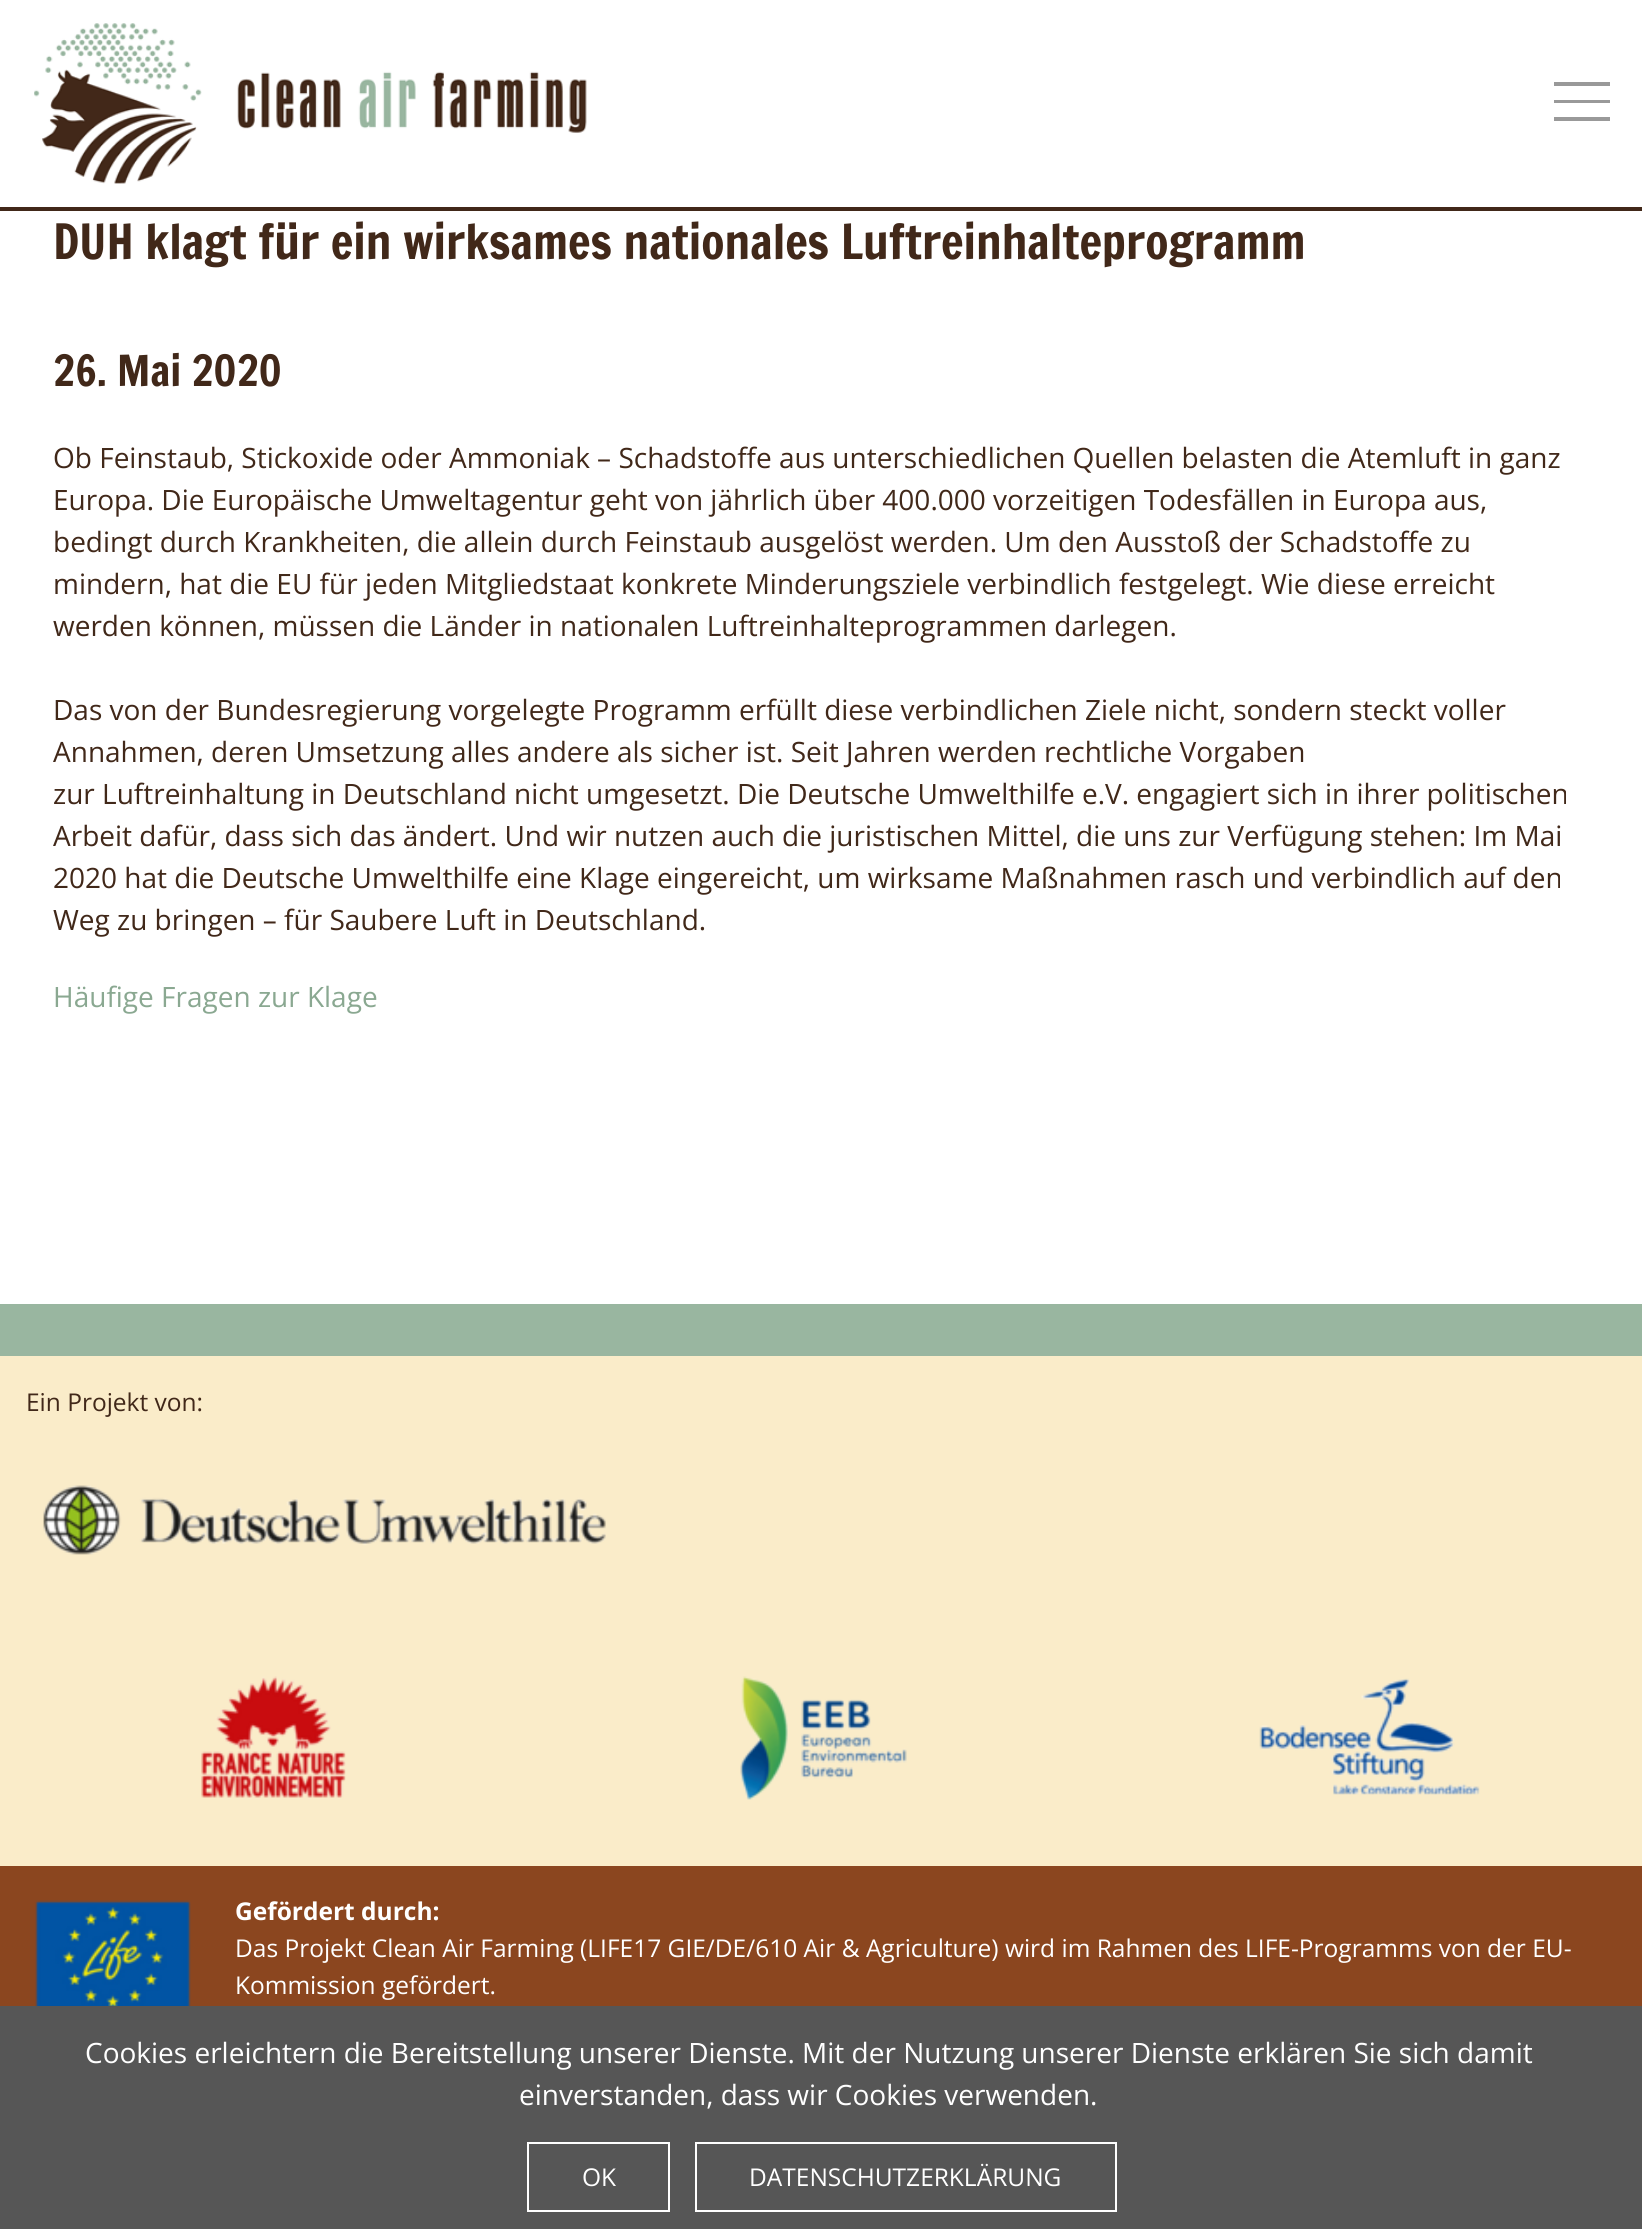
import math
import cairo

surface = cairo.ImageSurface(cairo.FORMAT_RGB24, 1642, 2229)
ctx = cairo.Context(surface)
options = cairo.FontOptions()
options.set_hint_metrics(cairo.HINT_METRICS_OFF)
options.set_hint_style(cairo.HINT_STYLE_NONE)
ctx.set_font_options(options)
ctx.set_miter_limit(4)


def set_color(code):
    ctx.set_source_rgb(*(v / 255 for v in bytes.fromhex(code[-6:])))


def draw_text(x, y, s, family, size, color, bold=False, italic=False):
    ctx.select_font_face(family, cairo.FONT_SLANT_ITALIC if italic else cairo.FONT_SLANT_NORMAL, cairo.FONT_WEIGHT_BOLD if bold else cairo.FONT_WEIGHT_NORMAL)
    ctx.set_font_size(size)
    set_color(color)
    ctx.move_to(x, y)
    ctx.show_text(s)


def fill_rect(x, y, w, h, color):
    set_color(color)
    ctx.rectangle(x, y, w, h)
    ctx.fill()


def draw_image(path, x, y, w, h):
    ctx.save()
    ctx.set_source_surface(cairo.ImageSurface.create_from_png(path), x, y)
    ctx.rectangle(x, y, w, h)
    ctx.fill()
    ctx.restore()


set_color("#ffffff")
ctx.paint()
fill_rect(0, 207, 1642, 4, "#412819")
draw_image("assets/img1.png", 34, 23, 553, 161)
fill_rect(1554, 82, 56, 4, "#999999")
fill_rect(1554, 100, 56, 3, "#999999")
fill_rect(1554, 117, 56, 4, "#999999")
draw_text(53, 259, "DUH klagt für ein wirksames nationales Luftreinhalteprogramm", "Francois One", 47.6, "#412819")
draw_text(53, 386, "26. Mai 2020", "Francois One", 42, "#412819")
draw_text(53, 468, "Ob Feinstaub, Stickoxide oder Ammoniak – Schadstoffe aus unterschiedlichen Quellen belasten die Atemluft in ganz", "Open Sans", 28, "#412819")
draw_text(53, 510, "Europa. Die Europäische Umweltagentur geht von jährlich über 400.000 vorzeitigen Todesfällen in Europa aus,", "Open Sans", 28, "#412819")
draw_text(53, 552, "bedingt durch Krankheiten, die allein durch Feinstaub ausgelöst werden. Um den Ausstoß der Schadstoffe zu", "Open Sans", 28, "#412819")
draw_text(53, 594, "mindern, hat die EU für jeden Mitgliedstaat konkrete Minderungsziele verbindlich festgelegt. Wie diese erreicht", "Open Sans", 28, "#412819")
draw_text(53, 636, "werden können, müssen die Länder in nationalen Luftreinhalteprogrammen darlegen.", "Open Sans", 28, "#412819")
draw_text(53, 720, "Das von der Bundesregierung vorgelegte Programm erfüllt diese verbindlichen Ziele nicht, sondern steckt voller", "Open Sans", 28, "#412819")
draw_text(53, 762, "Annahmen, deren Umsetzung alles andere als sicher ist. Seit Jahren werden rechtliche Vorgaben", "Open Sans", 28, "#412819")
draw_text(53, 804, "zur Luftreinhaltung in Deutschland nicht umgesetzt. Die Deutsche Umwelthilfe e.V. engagiert sich in ihrer politischen", "Open Sans", 28, "#412819")
draw_text(53, 846, "Arbeit dafür, dass sich das ändert. Und wir nutzen auch die juristischen Mittel, die uns zur Verfügung stehen: Im Mai", "Open Sans", 28, "#412819")
draw_text(53, 888, "2020 hat die Deutsche Umwelthilfe eine Klage eingereicht, um wirksame Maßnahmen rasch und verbindlich auf den", "Open Sans", 28, "#412819")
draw_text(53, 930, "Weg zu bringen – für Saubere Luft in Deutschland.", "Open Sans", 28, "#412819")
draw_text(53, 1007, "Häufige Fragen zur Klage", "Open Sans", 28, "#8aa891")
fill_rect(0, 1304, 1642, 52, "#99b6a0")
fill_rect(0, 1356, 1642, 510, "#faecc9")
draw_text(26, 1411, "Ein Projekt von:", "Open Sans", 24.5, "#412819")
draw_image("assets/img2.png", 43, 1485, 563, 70)
draw_image("assets/img3.png", 201, 1676, 145, 122)
draw_image("assets/img4.png", 740, 1676, 167, 124)
draw_image("assets/img5.png", 1259, 1678, 221, 117)
fill_rect(0, 1866, 1642, 140, "#8b461f")
draw_image("assets/img6.png", 35, 1900, 156, 106)
draw_text(235, 1920, "Gefördert durch:", "Open Sans", 24.5, "#ffffff", bold=True)
draw_text(235, 1957, "Das Projekt Clean Air Farming (LIFE17 GIE/DE/610 Air & Agriculture) wird im Rahmen des LIFE-Programms von der EU-", "Open Sans", 24.5, "#ffffff")
draw_text(235, 1994, "Kommission gefördert.", "Open Sans", 24.5, "#ffffff")
fill_rect(0, 2006, 1642, 223, "#565656")
draw_text(85, 2063, "Cookies erleichtern die Bereitstellung unserer Dienste. Mit der Nutzung unserer Dienste erklären Sie sich damit", "Open Sans", 28, "#ffffff")
draw_text(519, 2105, "einverstanden, dass wir Cookies verwenden.", "Open Sans", 28, "#ffffff")
ctx.rectangle(528, 2143, 141, 68)
ctx.stroke()
draw_text(582, 2186, "OK", "Open Sans", 24.5, "#ffffff")
ctx.rectangle(696, 2143, 420, 68)
ctx.stroke()
draw_text(749, 2186, "DATENSCHUTZERKLÄRUNG", "Open Sans", 24.5, "#ffffff")
surface.write_to_png("output.png")
